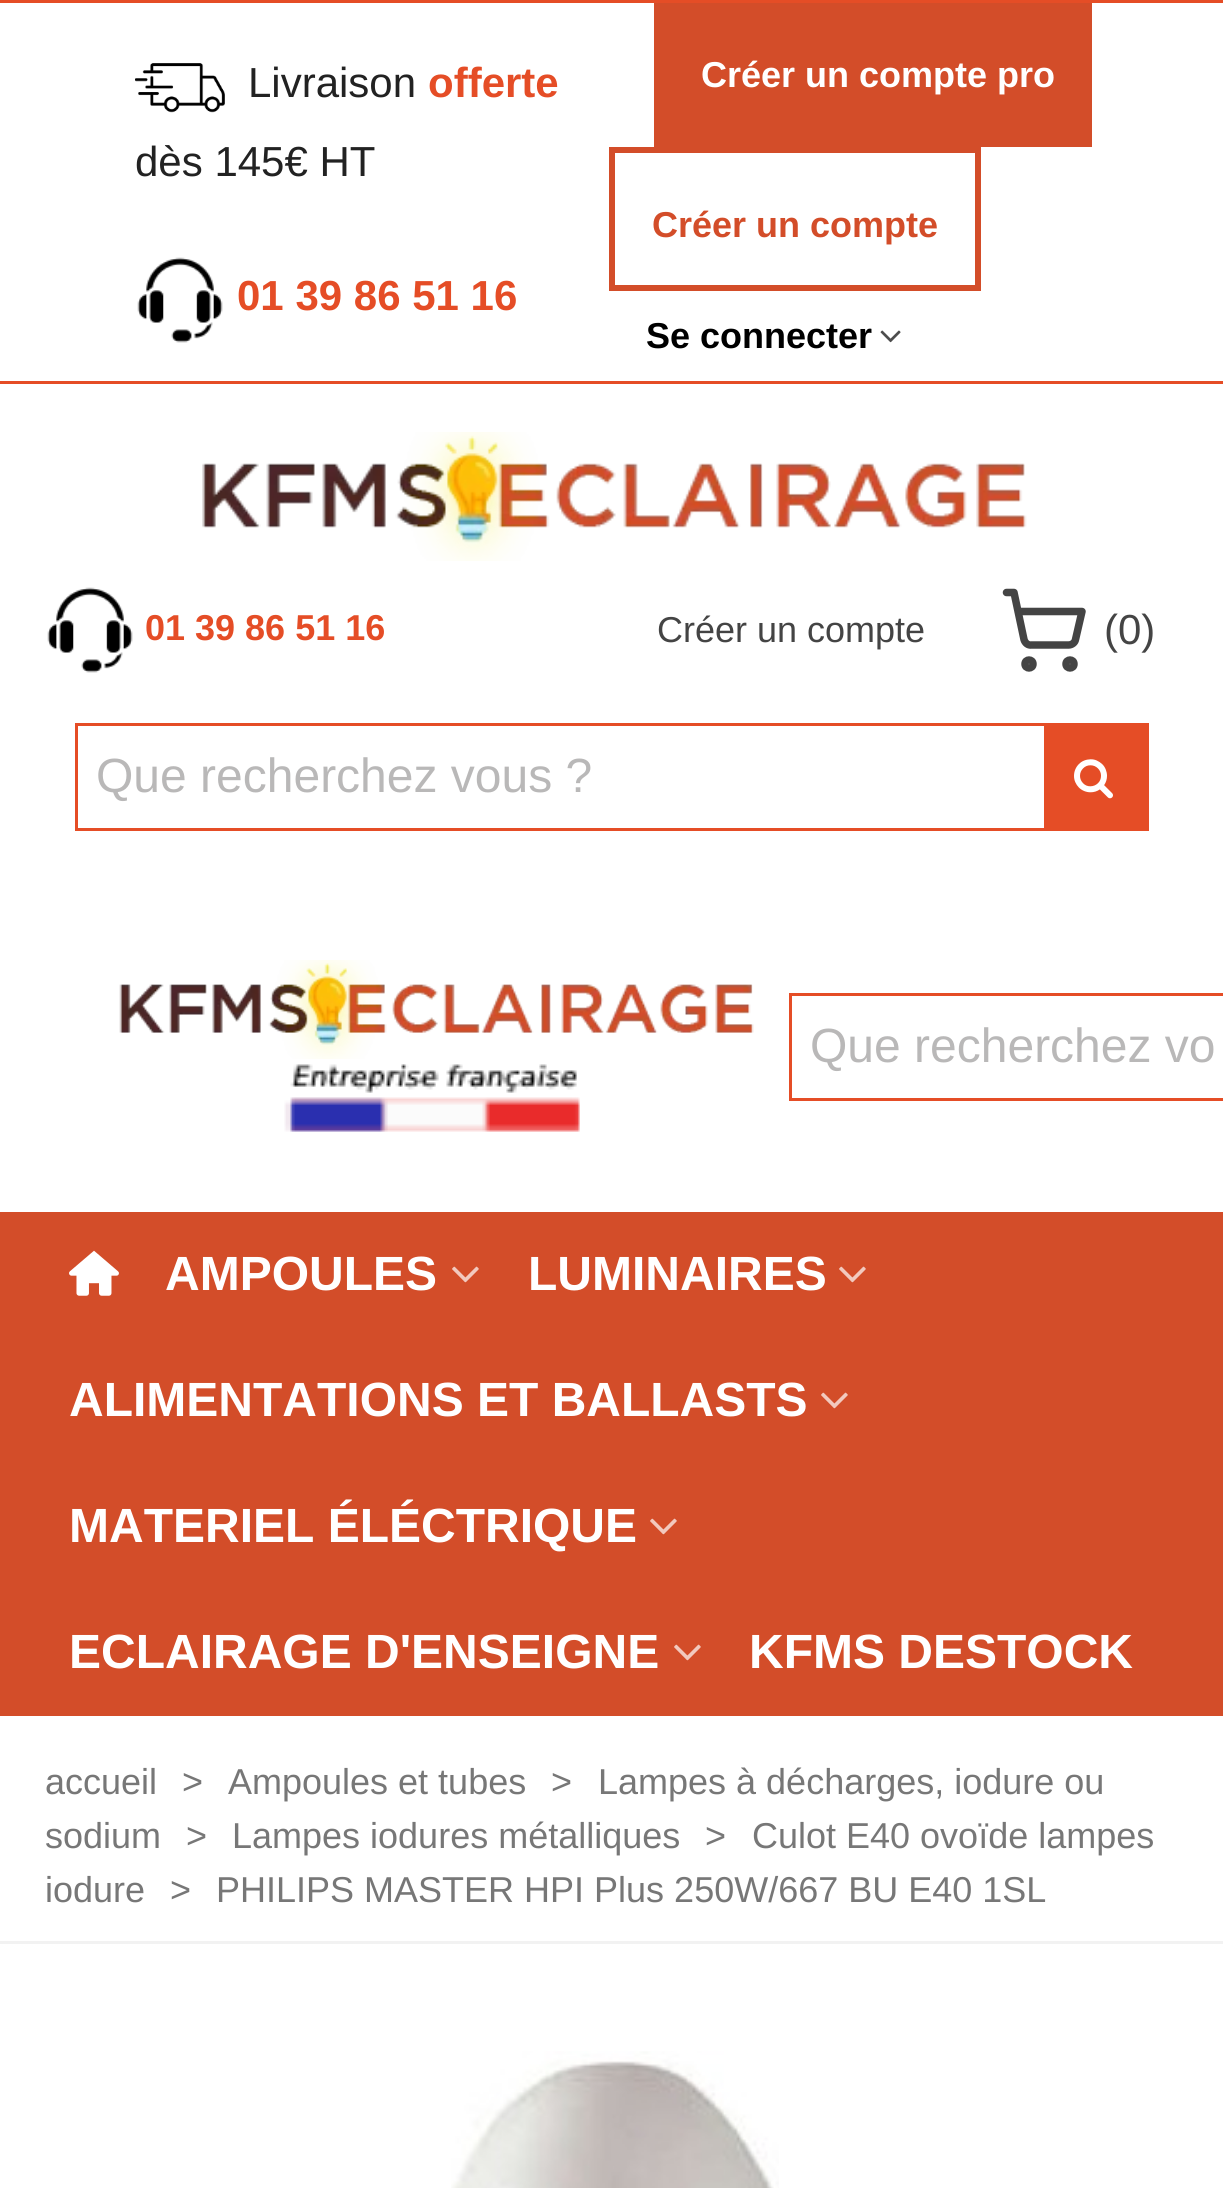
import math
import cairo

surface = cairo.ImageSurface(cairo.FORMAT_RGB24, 1223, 2188)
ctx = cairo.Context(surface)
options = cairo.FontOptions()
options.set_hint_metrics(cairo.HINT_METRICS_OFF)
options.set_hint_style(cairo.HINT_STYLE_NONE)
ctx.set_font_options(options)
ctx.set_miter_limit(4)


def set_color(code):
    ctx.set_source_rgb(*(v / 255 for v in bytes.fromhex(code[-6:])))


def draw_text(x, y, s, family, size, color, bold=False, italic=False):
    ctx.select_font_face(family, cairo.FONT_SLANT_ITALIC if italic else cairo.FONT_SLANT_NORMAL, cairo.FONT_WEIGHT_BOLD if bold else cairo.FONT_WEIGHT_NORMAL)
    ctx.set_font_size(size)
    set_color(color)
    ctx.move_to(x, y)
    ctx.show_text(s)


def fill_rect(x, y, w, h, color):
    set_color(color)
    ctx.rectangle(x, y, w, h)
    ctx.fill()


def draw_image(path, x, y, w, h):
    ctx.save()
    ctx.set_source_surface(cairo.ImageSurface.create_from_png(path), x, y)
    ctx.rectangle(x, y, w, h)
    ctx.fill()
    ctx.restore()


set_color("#ffffff")
ctx.paint()
fill_rect(0, 0, 1223, 3, "#e54d26")
fill_rect(0, 381, 1223, 3, "#e54d26")
draw_image("assets/img1.png", 135, 63, 90, 50)
draw_text(248, 97, "Livraison", "Liberation Sans", 42, "#222222")
draw_text(428, 97, "offerte", "Liberation Sans", 42, "#e54d26", bold=True)
draw_text(135, 176, "dès 145€ HT", "Liberation Sans", 42, "#222222")
draw_image("assets/img2.png", 137, 257, 86, 86)
draw_text(237, 310, "01 39 86 51 16", "Liberation Sans", 42, "#e54d26", bold=True)
fill_rect(654, 3, 438, 144, "#d34d29")
draw_text(701, 87, "Créer un compte pro", "Liberation Sans", 36, "#ffffff", bold=True)
ctx.rectangle(612, 150, 366, 138)
set_color("#d34d29")
ctx.set_line_width(6)
ctx.stroke()
draw_text(652, 237, "Créer un compte", "Liberation Sans", 36, "#d34d29", bold=True)
draw_text(646, 348, "Se connecter", "Liberation Sans", 36, "#000000", bold=True)
draw_image("assets/img3.png", 880, 330, 21, 13)
draw_image("assets/img4.png", 202, 432, 825, 129)
draw_image("assets/img5.png", 47, 587, 86, 86)
draw_text(145, 640, "01 39 86 51 16", "Liberation Sans", 36, "#e54d26", bold=True)
draw_text(657, 642, "Créer un compte", "Liberation Sans", 36, "#444444")
ctx.new_path()
ctx.arc(1029, 664, 4, 0, 2 * math.pi)
ctx.set_line_width(7.5)
ctx.stroke()
ctx.arc(1070, 664, 4, 0, 2 * math.pi)
ctx.stroke()
ctx.new_path()
ctx.move_to(1006.5, 592.5)
ctx.line_to(1014, 592.5)
ctx.line_to(1024, 639.5)
ctx.curve_to(1025, 643, 1028, 645.5, 1031.5, 645)
ctx.line_to(1068.5, 645)
ctx.curve_to(1072, 645, 1075, 642.5, 1075.5, 639.5)
ctx.line_to(1082, 611.5)
ctx.line_to(1018, 611.5)
ctx.set_line_cap(cairo.LINE_CAP_ROUND)
ctx.set_line_join(cairo.LINE_JOIN_ROUND)
ctx.stroke()
draw_text(1104, 644, "(0)", "Liberation Sans", 42, "#444444")
ctx.rectangle(76.5, 724.5, 1071, 105)
set_color("#e54d26")
ctx.set_line_width(3)
ctx.set_line_cap(cairo.LINE_CAP_BUTT)
ctx.set_line_join(cairo.LINE_JOIN_MITER)
ctx.stroke()
draw_text(96, 792, "Que recherchez vous ?", "Liberation Sans", 48, "#b9b8b8")
fill_rect(1044, 726, 102, 102, "#e54d26")
draw_image("assets/img6.png", 1074, 759, 39, 40)
draw_image("assets/img7.png", 119, 960, 635, 99)
draw_image("assets/img8.png", 284, 1064, 296, 68)
ctx.rectangle(790.5, 994.5, 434, 105)
ctx.stroke()
draw_text(810, 1062, "Que recherchez vo", "Liberation Sans", 48, "#b9b8b8")
fill_rect(0, 1212, 1223, 504, "#d34d29")
draw_image("assets/img9.png", 69, 1250, 50, 46)
draw_text(165, 1290, "AMPOULES", "Liberation Sans", 48, "#ffffff", bold=True)
draw_image("assets/img10.png", 452, 1266, 27, 17)
draw_text(528, 1290, "LUMINAIRES", "Liberation Sans", 48, "#ffffff", bold=True)
draw_image("assets/img10.png", 839, 1266, 27, 17)
draw_text(69, 1416, "ALIMENTATIONS ET BALLASTS", "Liberation Sans", 48, "#ffffff", bold=True)
draw_image("assets/img10.png", 821, 1392, 27, 17)
draw_text(69, 1542, "MATERIEL ÉLÉCTRIQUE", "Liberation Sans", 48, "#ffffff", bold=True)
draw_image("assets/img10.png", 650, 1518, 27, 17)
draw_text(69, 1668, "ECLAIRAGE D'ENSEIGNE", "Liberation Sans", 48, "#ffffff", bold=True)
draw_image("assets/img10.png", 674, 1644, 27, 17)
draw_text(749, 1668, "KFMS DESTOCK", "Liberation Sans", 48, "#ffffff", bold=True)
fill_rect(0, 1941, 1223, 3, "#f2f2f2")
draw_text(45, 1794, "accueil", "Liberation Sans", 36, "#777777")
draw_text(182, 1794, ">", "Liberation Sans", 36, "#777777")
draw_text(228, 1794, "Ampoules et tubes", "Liberation Sans", 36, "#777777")
draw_text(551, 1794, ">", "Liberation Sans", 36, "#777777")
draw_text(598, 1794, "Lampes à décharges, iodure ou", "Liberation Sans", 36, "#777777")
draw_text(45, 1848, "sodium", "Liberation Sans", 36, "#777777")
draw_text(186, 1848, ">", "Liberation Sans", 36, "#777777")
draw_text(232, 1848, "Lampes iodures métalliques", "Liberation Sans", 36, "#777777")
draw_text(705, 1848, ">", "Liberation Sans", 36, "#777777")
draw_text(752, 1848, "Culot E40 ovoïde lampes", "Liberation Sans", 36, "#777777")
draw_text(45, 1902, "iodure", "Liberation Sans", 36, "#777777")
draw_text(170, 1902, ">", "Liberation Sans", 36, "#777777")
draw_text(216, 1902, "PHILIPS MASTER HPI Plus 250W/667 BU E40 1SL", "Liberation Sans", 36, "#777777")
draw_image("assets/img11.png", 451, 2051, 328, 137)
surface.write_to_png("output.png")
